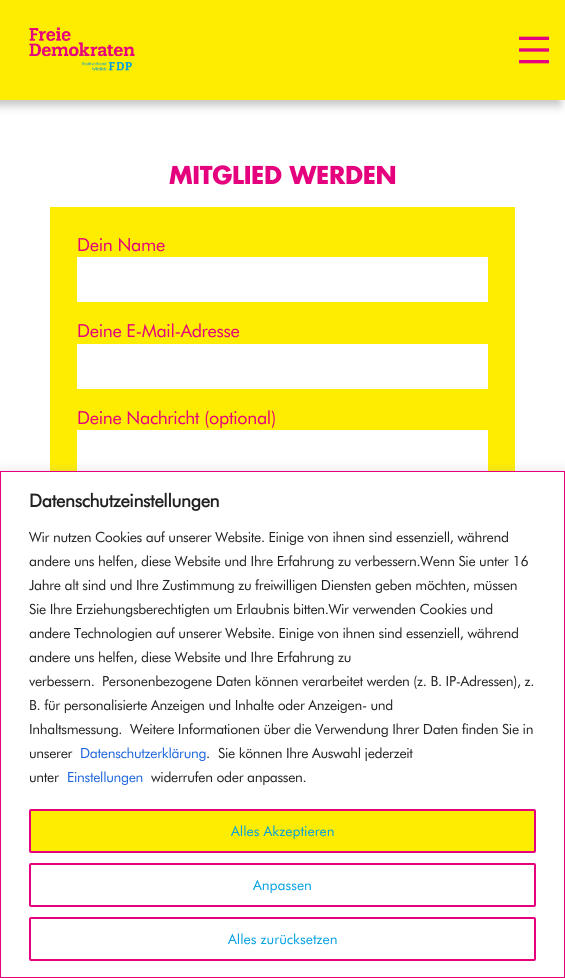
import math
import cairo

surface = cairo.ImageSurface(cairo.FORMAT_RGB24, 565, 978)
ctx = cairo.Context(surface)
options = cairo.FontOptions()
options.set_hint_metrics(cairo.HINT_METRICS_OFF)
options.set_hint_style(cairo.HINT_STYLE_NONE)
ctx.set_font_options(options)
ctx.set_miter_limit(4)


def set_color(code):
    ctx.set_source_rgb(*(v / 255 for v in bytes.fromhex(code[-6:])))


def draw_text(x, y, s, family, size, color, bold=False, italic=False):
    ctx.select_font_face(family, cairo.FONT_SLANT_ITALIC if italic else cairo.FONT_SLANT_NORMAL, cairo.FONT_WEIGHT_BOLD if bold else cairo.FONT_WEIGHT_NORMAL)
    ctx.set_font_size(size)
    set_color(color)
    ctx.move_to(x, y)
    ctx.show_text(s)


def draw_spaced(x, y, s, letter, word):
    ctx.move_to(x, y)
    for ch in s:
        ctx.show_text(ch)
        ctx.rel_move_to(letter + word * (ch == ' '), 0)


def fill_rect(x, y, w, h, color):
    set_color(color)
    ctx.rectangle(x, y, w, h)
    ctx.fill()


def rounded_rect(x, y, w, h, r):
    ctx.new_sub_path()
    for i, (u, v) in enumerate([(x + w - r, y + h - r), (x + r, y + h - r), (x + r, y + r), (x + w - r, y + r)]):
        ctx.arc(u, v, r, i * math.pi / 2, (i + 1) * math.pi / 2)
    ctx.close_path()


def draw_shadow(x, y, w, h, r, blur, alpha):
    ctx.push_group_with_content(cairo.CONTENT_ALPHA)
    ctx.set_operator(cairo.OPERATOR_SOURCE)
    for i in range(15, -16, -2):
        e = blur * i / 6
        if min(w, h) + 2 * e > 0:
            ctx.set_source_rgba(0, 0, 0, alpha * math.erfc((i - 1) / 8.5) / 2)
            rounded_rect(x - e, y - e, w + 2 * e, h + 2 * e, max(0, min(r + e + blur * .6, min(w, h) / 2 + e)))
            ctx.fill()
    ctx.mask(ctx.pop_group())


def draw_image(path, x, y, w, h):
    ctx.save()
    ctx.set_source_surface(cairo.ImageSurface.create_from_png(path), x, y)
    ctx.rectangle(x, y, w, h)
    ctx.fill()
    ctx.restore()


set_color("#ffffff")
ctx.paint()
set_color("#000000")
draw_shadow(-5, 5, 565, 100, 0, 5, 0.25)
fill_rect(0, 0, 565, 100, "#ffed00")
draw_image("assets/img1.png", 29, 27, 106, 44)
draw_image("assets/img2.png", 519, 36, 30, 28)
ctx.select_font_face("Futura", cairo.FONT_SLANT_ITALIC, cairo.FONT_WEIGHT_BOLD)
ctx.set_font_size(24)
set_color("#e5007d")
draw_spaced(169, 184, "MITGLIED WERDEN", -0.32, 0)
fill_rect(50, 207, 465, 264, "#ffed00")
ctx.select_font_face("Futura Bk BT")
ctx.set_font_size(18)
set_color("#e5007d")
draw_spaced(77, 251, "Dein Name", -0.32, 0)
fill_rect(77, 257, 411, 45, "#ffffff")
set_color("#e5007d")
draw_spaced(77, 337, "Deine E-Mail-Adresse", -0.32, 0)
fill_rect(77, 344, 411, 45, "#ffffff")
set_color("#e5007d")
draw_spaced(77, 424, "Deine Nachricht (optional)", -0.32, 0)
fill_rect(77, 430, 411, 41, "#ffffff")
set_color("#acabab")
draw_shadow(0, 470, 565, 507, 0, 5, 0.3)
set_color("#ffffff")
ctx.rectangle(0.5, 471.5, 564, 506)
ctx.fill_preserve()
set_color("#e5007d")
ctx.set_line_width(1)
ctx.stroke()
ctx.select_font_face("Futura Bk BT", cairo.FONT_SLANT_NORMAL, cairo.FONT_WEIGHT_BOLD)
set_color("#212121")
draw_spaced(29, 507, "Datenschutzeinstellungen", -0.32, 0)
ctx.select_font_face("Futura Bk BT")
ctx.set_font_size(14)
draw_spaced(29, 542, "Wir nutzen Cookies auf unserer Website. Einige von ihnen sind essenziell, während", -0.32, 0)
draw_spaced(29, 566, "andere uns helfen, diese Website und Ihre Erfahrung zu verbessern.Wenn Sie unter 16", -0.32, 0)
draw_spaced(29, 590, "Jahre alt sind und Ihre Zustimmung zu freiwilligen Diensten geben möchten, müssen", -0.32, 0)
draw_spaced(29, 614, "Sie Ihre Erziehungsberechtigten um Erlaubnis bitten.Wir verwenden Cookies und", -0.32, 0)
draw_spaced(29, 638, "andere Technologien auf unserer Website. Einige von ihnen sind essenziell, während", -0.32, 0)
draw_spaced(29, 662, "andere uns helfen, diese Website und Ihre Erfahrung zu", -0.32, 0)
draw_spaced(29, 686, "verbessern.", -0.32, 0)
draw_spaced(102, 686, "Personenbezogene Daten können verarbeitet werden (z. B. IP-Adressen), z.", -0.32, 0)
draw_spaced(29, 710, "B. für personalisierte Anzeigen und Inhalte oder Anzeigen- und", -0.32, 0)
draw_spaced(29, 734, "Inhaltsmessung.", -0.32, 0)
draw_spaced(130, 734, "Weitere Informationen über die Verwendung Ihrer Daten finden Sie in", -0.32, 0)
draw_spaced(29, 758, "unserer", -0.32, 0)
set_color("#1863dc")
draw_spaced(80, 758, "Datenschutzerklärung", -0.32, 0)
set_color("#212121")
draw_spaced(206, 758, ".", -0.32, 0)
draw_spaced(218, 758, "Sie können Ihre Auswahl jederzeit", -0.32, 0)
draw_spaced(29, 782, "unter", -0.32, 0)
set_color("#1863dc")
draw_spaced(67, 782, "Einstellungen", -0.32, 0)
set_color("#212121")
draw_spaced(151, 782, "widerrufen oder anpassen.", -0.32, 0)
set_color("#ffed00")
rounded_rect(30, 810, 505, 42, 1)
ctx.fill_preserve()
set_color("#e5007d")
ctx.set_line_width(2)
ctx.stroke()
draw_text(231, 836, "Alles Akzeptieren", "Futura Bk BT", 14, "#009ee3")
rounded_rect(30, 864, 505, 42, 1)
set_color("#e5007d")
ctx.stroke()
draw_text(253, 890, "Anpassen", "Futura Bk BT", 14, "#009ee3")
rounded_rect(30, 918, 505, 42, 1)
set_color("#e5007d")
ctx.stroke()
draw_text(228, 944, "Alles zurücksetzen", "Futura Bk BT", 14, "#009ee3")
surface.write_to_png("output.png")
